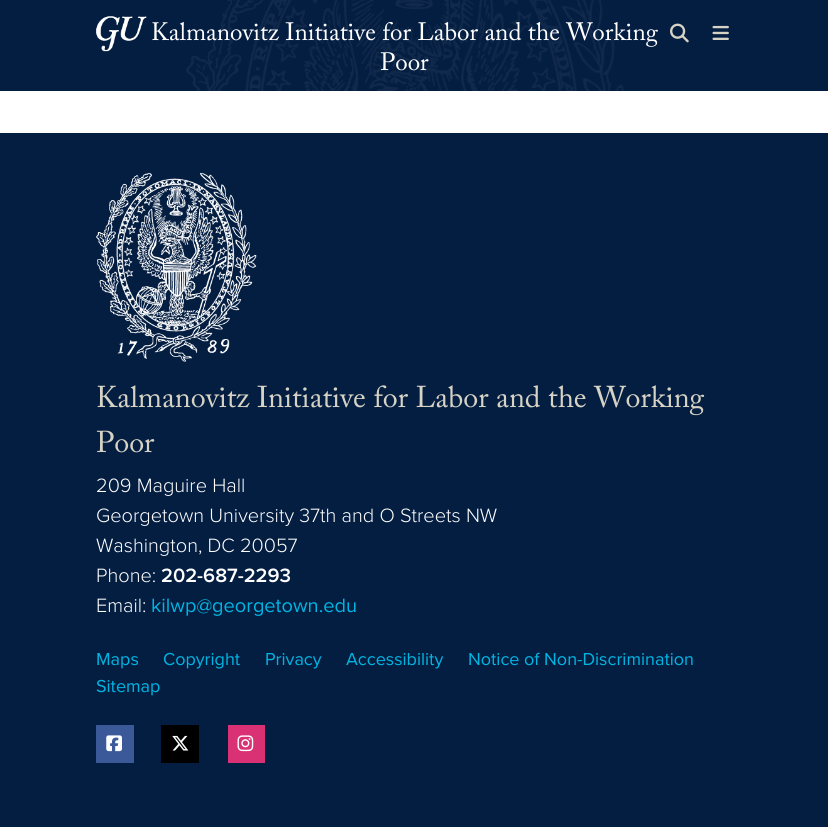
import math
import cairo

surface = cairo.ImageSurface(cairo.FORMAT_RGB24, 828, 827)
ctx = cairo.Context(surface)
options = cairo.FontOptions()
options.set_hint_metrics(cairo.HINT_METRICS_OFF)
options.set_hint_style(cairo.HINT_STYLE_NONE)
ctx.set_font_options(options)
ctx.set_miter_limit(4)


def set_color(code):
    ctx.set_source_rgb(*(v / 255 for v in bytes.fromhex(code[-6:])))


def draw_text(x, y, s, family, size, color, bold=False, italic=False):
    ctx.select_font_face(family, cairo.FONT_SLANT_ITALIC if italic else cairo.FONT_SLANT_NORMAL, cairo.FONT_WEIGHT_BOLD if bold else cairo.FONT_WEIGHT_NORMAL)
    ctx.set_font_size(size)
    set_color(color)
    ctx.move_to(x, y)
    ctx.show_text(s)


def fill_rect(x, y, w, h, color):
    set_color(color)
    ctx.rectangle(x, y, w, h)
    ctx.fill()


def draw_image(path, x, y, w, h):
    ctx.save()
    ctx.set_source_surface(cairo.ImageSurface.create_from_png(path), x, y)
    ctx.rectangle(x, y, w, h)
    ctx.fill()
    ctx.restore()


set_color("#ffffff")
ctx.paint()
fill_rect(0, 0, 828, 91, "#041e42")
draw_image("assets/img1.png", 186, 0, 438, 91)
draw_image("assets/img2.png", 96, 16, 51, 36)
draw_text(151, 40, "Kalmanovitz Initiative for Labor and the Working", "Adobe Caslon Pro", 25, "#ffffff")
draw_text(380, 70, "Poor", "Adobe Caslon Pro", 25, "#ffffff")
draw_image("assets/img3.png", 670, 23, 19, 20)
draw_image("assets/img4.png", 712, 25, 17, 15)
fill_rect(0, 133, 828, 694, "#041e42")
draw_image("assets/img5.png", 96, 172, 161, 190)
draw_text(96, 407, "Kalmanovitz Initiative for Labor and the Working", "Adobe Caslon Pro", 30, "#d6d2c4")
draw_text(96, 452, "Poor", "Adobe Caslon Pro", 30, "#d6d2c4")
draw_text(96, 492, "209 Maguire Hall", "Proxima Nova Light", 20, "#ffffff")
draw_text(96, 522, "Georgetown University 37th and O Streets NW", "Proxima Nova Light", 20, "#ffffff")
draw_text(96, 552, "Washington, DC 20057", "Proxima Nova Light", 20, "#ffffff")
draw_text(96, 582, "Phone:", "Proxima Nova Light", 20, "#ffffff")
draw_text(161, 582, "202-687-2293", "Proxima Nova SemiBold", 20, "#ffffff")
draw_text(96, 612, "Email:", "Proxima Nova Light", 20, "#ffffff")
draw_text(151, 612, "kilwp@georgetown.edu", "Proxima Nova", 20, "#00b5e2")
draw_text(96, 665, "Maps", "Proxima Nova", 18, "#00b5e2")
draw_text(163, 665, "Copyright", "Proxima Nova", 18, "#00b5e2")
draw_text(265, 665, "Privacy", "Proxima Nova", 18, "#00b5e2")
draw_text(346, 665, "Accessibility", "Proxima Nova", 18, "#00b5e2")
draw_text(468, 665, "Notice of Non-Discrimination", "Proxima Nova", 18, "#00b5e2")
draw_text(96, 692, "Sitemap", "Proxima Nova", 18, "#00b5e2")
fill_rect(96, 725, 38, 38, "#3b5998")
draw_image("assets/img6.png", 106, 735, 16, 17)
fill_rect(161, 725, 38, 38, "#000000")
draw_image("assets/img7.png", 172, 735, 17, 16)
fill_rect(228, 725, 37, 38, "#d93174")
draw_image("assets/img8.png", 237, 735, 17, 17)
surface.write_to_png("output.png")
